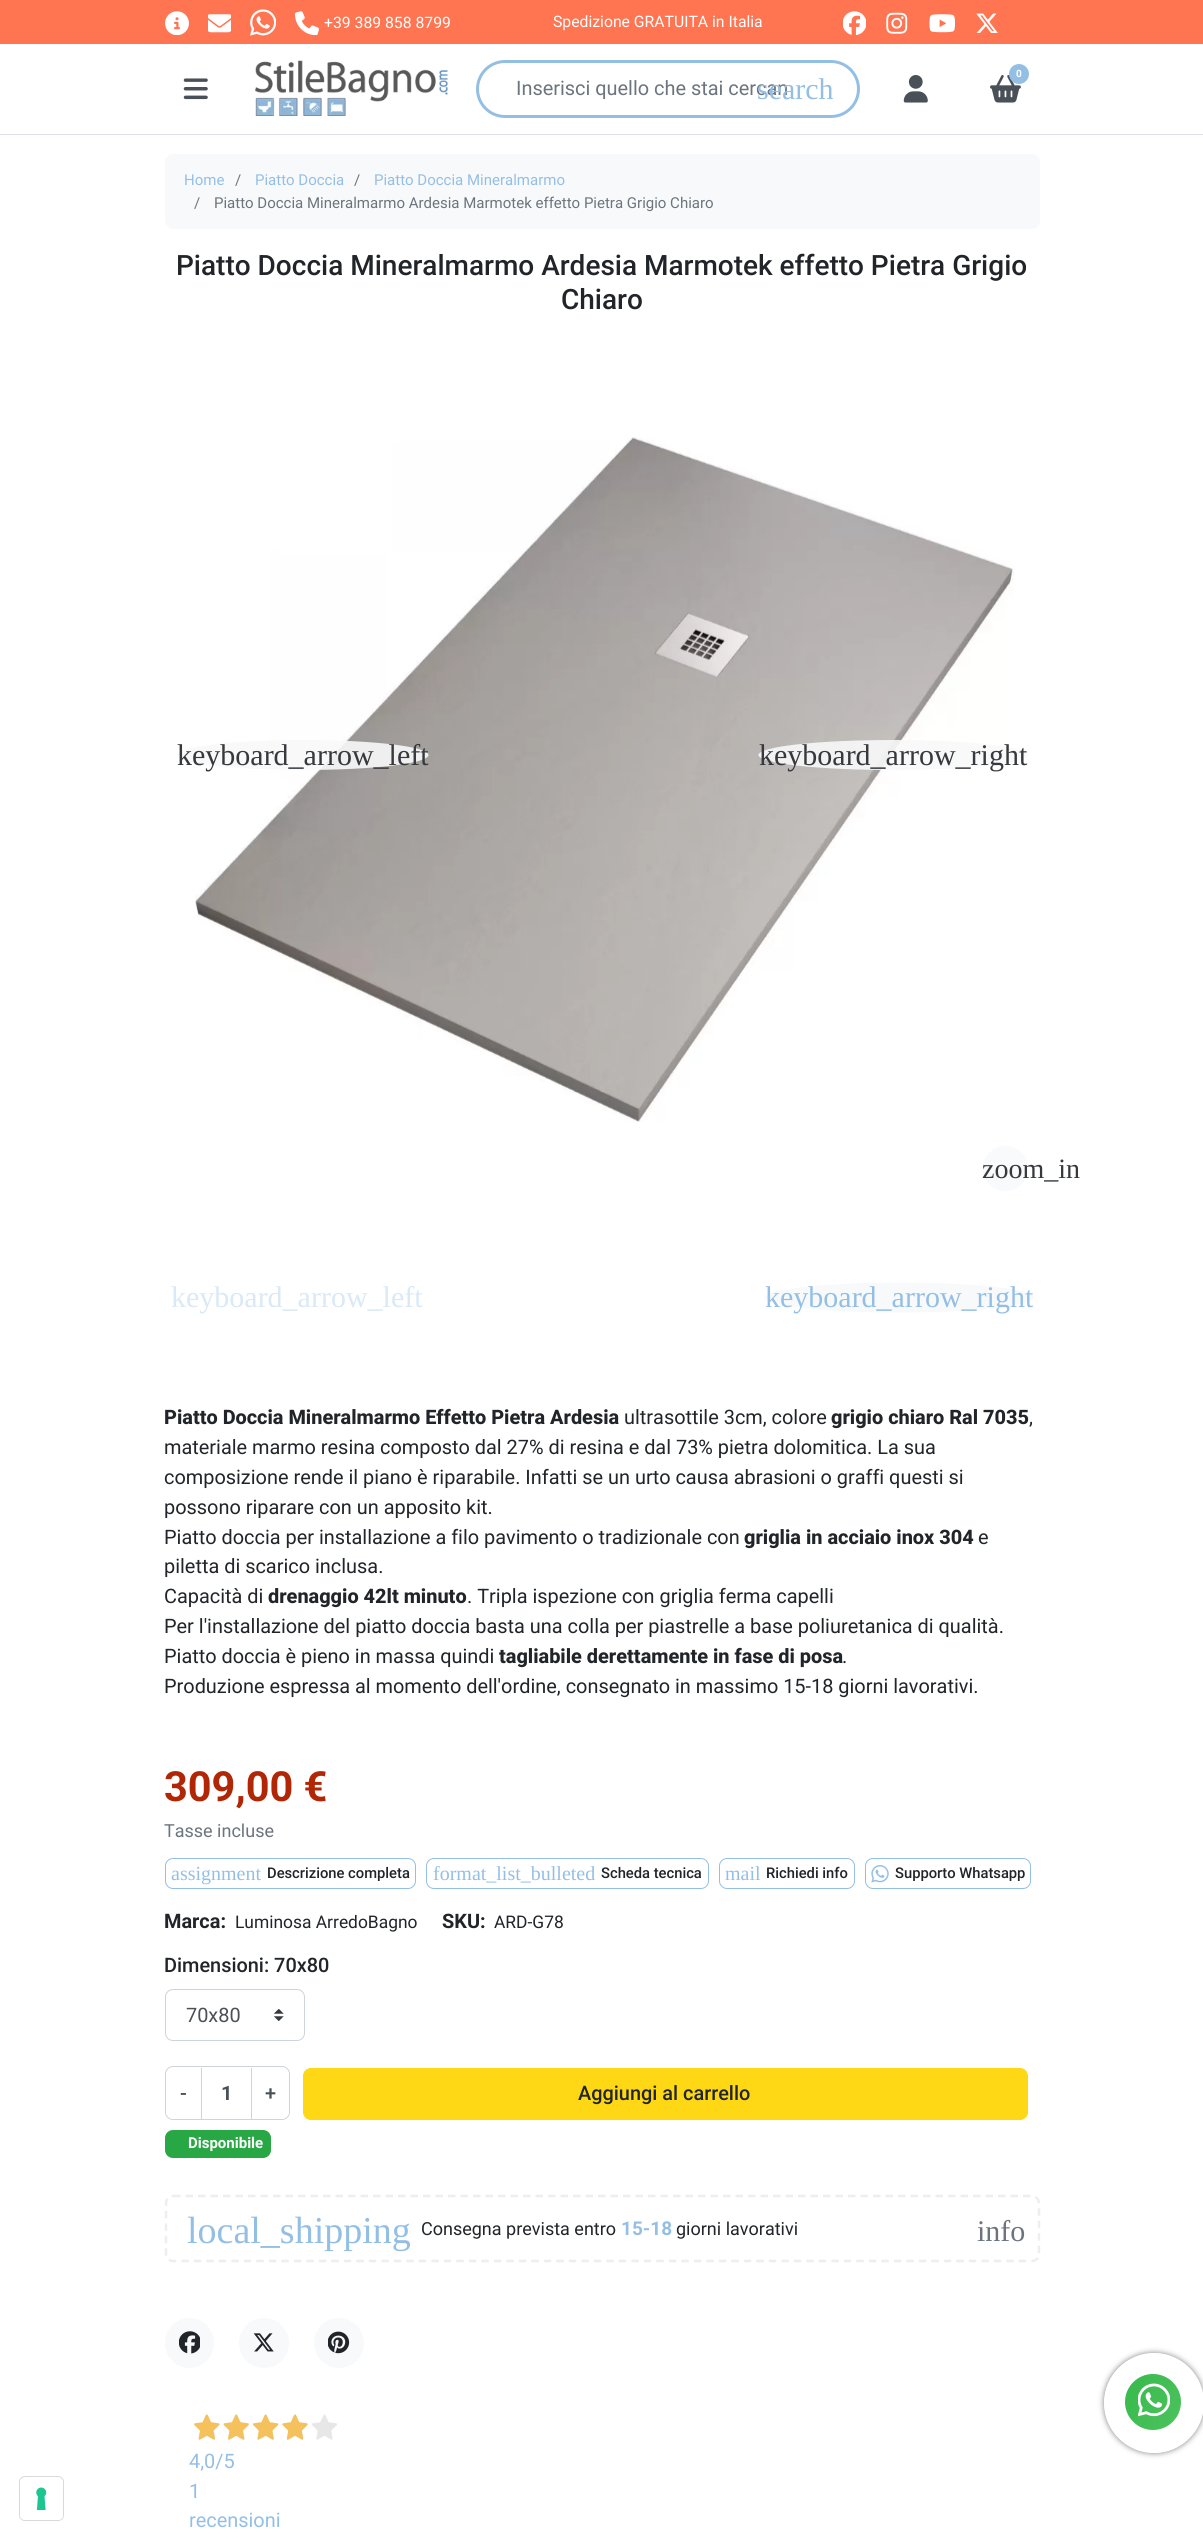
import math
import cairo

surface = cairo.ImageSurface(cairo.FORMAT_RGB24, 1203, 2539)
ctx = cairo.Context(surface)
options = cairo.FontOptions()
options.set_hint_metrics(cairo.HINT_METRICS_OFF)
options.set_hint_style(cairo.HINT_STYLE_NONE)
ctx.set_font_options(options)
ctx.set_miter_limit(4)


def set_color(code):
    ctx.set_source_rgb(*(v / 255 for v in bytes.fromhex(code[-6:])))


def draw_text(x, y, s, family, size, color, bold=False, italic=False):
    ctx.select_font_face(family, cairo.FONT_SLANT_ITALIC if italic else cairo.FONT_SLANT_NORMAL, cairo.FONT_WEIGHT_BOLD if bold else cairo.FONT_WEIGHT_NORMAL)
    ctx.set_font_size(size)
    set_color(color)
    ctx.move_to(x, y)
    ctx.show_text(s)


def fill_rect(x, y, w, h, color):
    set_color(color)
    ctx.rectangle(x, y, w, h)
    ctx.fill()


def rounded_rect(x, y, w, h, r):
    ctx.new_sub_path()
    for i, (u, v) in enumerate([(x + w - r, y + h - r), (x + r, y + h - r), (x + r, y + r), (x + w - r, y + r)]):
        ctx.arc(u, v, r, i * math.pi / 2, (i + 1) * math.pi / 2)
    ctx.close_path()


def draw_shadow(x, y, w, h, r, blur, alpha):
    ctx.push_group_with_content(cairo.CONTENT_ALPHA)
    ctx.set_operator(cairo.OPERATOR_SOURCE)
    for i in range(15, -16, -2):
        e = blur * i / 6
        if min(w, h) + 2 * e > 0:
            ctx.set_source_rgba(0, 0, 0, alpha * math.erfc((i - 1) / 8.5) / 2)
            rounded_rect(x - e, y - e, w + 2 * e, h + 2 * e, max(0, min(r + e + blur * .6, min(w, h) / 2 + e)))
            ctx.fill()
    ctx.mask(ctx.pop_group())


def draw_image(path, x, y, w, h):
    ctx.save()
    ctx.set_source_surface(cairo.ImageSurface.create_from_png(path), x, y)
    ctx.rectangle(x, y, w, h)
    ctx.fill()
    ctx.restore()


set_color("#ffffff")
ctx.paint()
fill_rect(0, 0, 1203, 44, "#ff7451")
draw_image("assets/img1.png", 165, 11, 24, 24)
draw_image("assets/img2.png", 208, 14, 23, 19)
draw_image("assets/img3.png", 250, 9, 26, 27)
draw_image("assets/img4.png", 295, 11, 24, 24)
draw_text(324, 28, "+39 389 858 8799", "Roboto", 15.75, "#ffffff")
draw_text(553, 27, "Spedizione GRATUITA in Italia", "Roboto", 15.75, "#ffffff")
draw_image("assets/img5.png", 843, 11, 23, 24)
draw_image("assets/img6.png", 886, 12, 22, 22)
draw_image("assets/img7.png", 929, 14, 26, 19)
draw_image("assets/img8.png", 976, 13, 22, 20)
fill_rect(0, 134, 1203, 1, "#dee2e6")
draw_image("assets/img9.png", 255, 60, 193, 56)
draw_image("assets/img10.png", 990, 75, 31, 28)
set_color("#94bfe5")
ctx.arc(1019, 74, 10, 0, 2 * math.pi)
ctx.fill()
draw_text(1016, 77, "0", "Roboto", 10, "#ffffff", bold=True)
draw_image("assets/img11.png", 183, 78, 25, 22)
rounded_rect(477.5, 61.5, 381, 55, 27.5)
set_color("#94bfe5")
ctx.set_line_width(3)
ctx.stroke()
draw_text(516, 95, "Inserisci quello che stai cercan", "Roboto", 19.9, "#6c757d")
draw_text(757, 99, "search", "Liberation Serif", 30, "#94bfe5")
draw_image("assets/img12.png", 903, 75, 25, 28)
set_color("#f8f9fa")
rounded_rect(165, 154, 875, 75, 8)
ctx.fill()
draw_text(184, 185, "Home", "Roboto", 15, "#94bfe5")
draw_text(235, 185, "/", "Roboto", 15, "#6c757d")
draw_text(255, 185, "Piatto Doccia", "Roboto", 15, "#94bfe5")
draw_text(354, 185, "/", "Roboto", 15, "#6c757d")
draw_text(374, 185, "Piatto Doccia Mineralmarmo", "Roboto", 15, "#94bfe5")
draw_text(194, 208, "/", "Roboto", 15, "#6c757d")
draw_text(214, 208, "Piatto Doccia Mineralmarmo Ardesia Marmotek effetto Pietra Grigio Chiaro", "Roboto", 15, "#6c757d")
draw_text(176, 275, "Piatto Doccia Mineralmarmo Ardesia Marmotek effetto Pietra Grigio", "Roboto Medium", 28, "#212529")
draw_text(561, 309, "Chiaro", "Roboto Medium", 28, "#212529")
draw_image("assets/img13.png", 195, 437, 819, 685)
ctx.set_source_rgba(0.973, 0.976, 0.98, 0.9)
ctx.new_path()
ctx.move_to(303, 740)
ctx.curve_to(372.5, 740, 428.5, 746.5, 428.5, 755)
ctx.curve_to(428.5, 763.5, 372.5, 770, 303, 770)
ctx.curve_to(233.5, 770, 177.5, 763.5, 177.5, 755)
ctx.curve_to(177.5, 746.5, 233.5, 740, 303, 740)
ctx.close_path()
ctx.fill()
draw_text(177, 765, "keyboard_arrow_left", "Liberation Serif", 30, "#36393d")
ctx.set_source_rgba(0.973, 0.976, 0.98, 0.9)
ctx.new_path()
ctx.move_to(893, 740)
ctx.curve_to(967.5, 740, 1027.5, 746.5, 1027.5, 755)
ctx.curve_to(1027.5, 763.5, 967.5, 770, 893, 770)
ctx.curve_to(818.5, 770, 758.5, 763.5, 758.5, 755)
ctx.curve_to(758.5, 746.5, 818.5, 740, 893, 740)
ctx.close_path()
ctx.fill()
draw_text(759, 765, "keyboard_arrow_right", "Liberation Serif", 30, "#36393d")
set_color("#f9fafb")
ctx.new_path()
ctx.arc(1005.5, 1168.5, 22.5, 0, 2 * math.pi)
ctx.fill()
draw_text(982, 1178, "zoom_in", "Liberation Serif", 28, "#36393d")
draw_text(171, 1307, "keyboard_arrow_left", "Liberation Serif", 30, "#dae9f6")
set_color("#f8f9fa")
ctx.new_path()
ctx.move_to(899.5, 1282.5)
ctx.curve_to(974, 1282.5, 1034, 1289, 1034, 1297.5)
ctx.curve_to(1034, 1306, 974, 1312.5, 899.5, 1312.5)
ctx.curve_to(825, 1312.5, 765, 1306, 765, 1297.5)
ctx.curve_to(765, 1289, 825, 1282.5, 899.5, 1282.5)
ctx.close_path()
ctx.fill()
draw_text(765, 1307, "keyboard_arrow_right", "Liberation Serif", 30, "#94bfe5")
draw_text(164, 1424, "Piatto Doccia Mineralmarmo Effetto Pietra Ardesia", "Roboto ExtraBold", 19.9, "#212529")
draw_text(624, 1424, "ultrasottile 3cm, colore", "Roboto", 19.9, "#212529")
draw_text(831, 1424, "grigio chiaro Ral 7035", "Roboto ExtraBold", 19.9, "#212529")
draw_text(1029, 1424, ",", "Roboto", 19.9, "#212529")
draw_text(164, 1454, "materiale marmo resina composto dal 27% di resina e dal 73% pietra dolomitica. La sua", "Roboto", 19.9, "#212529")
draw_text(164, 1484, "composizione rende il piano è riparabile. Infatti se un urto causa abrasioni o graffi questi si", "Roboto", 19.9, "#212529")
draw_text(164, 1514, "possono riparare con un apposito kit.", "Roboto", 19.9, "#212529")
draw_text(164, 1544, "Piatto doccia per installazione a filo pavimento o tradizionale con", "Roboto", 19.9, "#212529")
draw_text(744, 1544, "griglia in acciaio inox 304", "Roboto ExtraBold", 19.9, "#212529")
draw_text(978, 1544, "e", "Roboto", 19.9, "#212529")
draw_text(164, 1573, "piletta di scarico inclusa.", "Roboto", 19.9, "#212529")
draw_text(164, 1603, "Capacità di", "Roboto", 19.9, "#212529")
draw_text(268, 1603, "drenaggio 42lt minuto", "Roboto ExtraBold", 19.9, "#212529")
draw_text(467, 1603, ". Tripla ispezione con griglia ferma capelli", "Roboto", 19.9, "#212529")
draw_text(164, 1633, "Per l'installazione del piatto doccia basta una colla per piastrelle a base poliuretanica di qualità.", "Roboto", 19.9, "#212529")
draw_text(164, 1663, "Piatto doccia è pieno in massa quindi", "Roboto", 19.9, "#212529")
draw_text(499, 1663, "tagliabile derettamente in fase di posa", "Roboto ExtraBold", 19.9, "#212529")
draw_text(842, 1663, ".", "Roboto", 19.9, "#212529")
draw_text(164, 1693, "Produzione espressa al momento dell'ordine, consegnato in massimo 15-18 giorni lavorativi.", "Roboto", 19.9, "#212529")
draw_text(164, 1801, "309,00 €", "Roboto", 41.5, "#b12705", bold=True)
draw_text(164, 1837, "Tasse incluse", "Roboto", 18, "#6c757d")
rounded_rect(165.5, 1858.5, 250, 30, 7.5)
set_color("#94bfe5")
ctx.set_line_width(1)
ctx.stroke()
draw_text(171, 1880, "assignment", "Liberation Serif", 20, "#94bfe5")
draw_text(267, 1878, "Descrizione completa", "Roboto Medium", 14.75, "#212529")
rounded_rect(426.5, 1858.5, 282, 30, 7.5)
set_color("#94bfe5")
ctx.stroke()
draw_text(433, 1880, "format_list_bulleted", "Liberation Serif", 20, "#94bfe5")
draw_text(601, 1878, "Scheda tecnica", "Roboto Medium", 14.75, "#212529")
rounded_rect(719.5, 1858.5, 135, 30, 7.5)
set_color("#94bfe5")
ctx.stroke()
draw_text(725, 1880, "mail", "Liberation Serif", 20, "#94bfe5")
draw_text(766, 1878, "Richiedi info", "Roboto Medium", 14.75, "#212529")
rounded_rect(865.5, 1858.5, 165, 30, 7.5)
set_color("#94bfe5")
ctx.stroke()
draw_image("assets/img14.png", 871, 1865, 18, 18)
draw_text(895, 1878, "Supporto Whatsapp", "Roboto Medium", 14.75, "#212529")
draw_text(164, 1928, "Marca:", "Roboto", 19.9, "#212529", bold=True)
draw_text(235, 1928, "Luminosa ArredoBagno", "Roboto", 17.4, "#212529")
draw_text(442, 1928, "SKU:", "Roboto", 19.9, "#212529", bold=True)
draw_text(494, 1928, "ARD-G78", "Roboto", 17.4, "#212529")
draw_text(164, 1972, "Dimensioni: 70x80", "Roboto Medium", 19.9, "#212529")
draw_image("assets/img15.png", 274, 2009, 10, 12)
rounded_rect(165.5, 1989.5, 139, 51, 7.5)
set_color("#ced4da")
ctx.stroke()
draw_text(186, 2022, "70x80", "Roboto", 19.9, "#495057")
rounded_rect(165.5, 2066.5, 124, 53, 7.5)
set_color("#ced4da")
ctx.stroke()
set_color("#ffffff")
ctx.new_path()
ctx.move_to(174, 2068)
ctx.line_to(201, 2068)
ctx.line_to(201, 2119)
ctx.line_to(174, 2119)
ctx.curve_to(169.5, 2119, 166, 2115.5, 166, 2111)
ctx.line_to(166, 2076)
ctx.curve_to(166, 2071.5, 169.5, 2068, 174, 2068)
ctx.close_path()
ctx.fill()
draw_text(180, 2100, "-", "Roboto Medium", 19.9, "#495057")
fill_rect(251, 2068, 1, 51, "#ced4da")
fill_rect(201, 2068, 1, 51, "#ced4da")
draw_text(221, 2100, "1", "Roboto", 19.9, "#495057", bold=True)
set_color("#ffffff")
ctx.new_path()
ctx.move_to(253, 2068)
ctx.line_to(281, 2068)
ctx.curve_to(285.5, 2068, 289, 2071.5, 289, 2076)
ctx.line_to(289, 2111)
ctx.curve_to(289, 2115.5, 285.5, 2119, 281, 2119)
ctx.line_to(253, 2119)
ctx.close_path()
ctx.fill()
draw_text(265, 2100, "+", "Roboto Medium", 19.9, "#495057")
set_color("#ffd815")
rounded_rect(303.5, 2068.5, 724, 51, 7.5)
ctx.fill_preserve()
ctx.stroke()
draw_text(578, 2100, "Aggiungi al carrello", "Roboto Medium", 19.9, "#212529")
set_color("#28a745")
rounded_rect(165, 2130, 106, 28, 8)
ctx.fill()
draw_text(188, 2148, "Disponibile", "Roboto", 15, "#ffffff", bold=True)
ctx.new_path()
ctx.move_to(173, 2196)
ctx.line_to(1032, 2196)
ctx.curve_to(1035.5, 2196, 1039, 2199.5, 1039, 2203)
ctx.line_to(1039, 2254.5)
ctx.curve_to(1039, 2258, 1035.5, 2261, 1032, 2261)
ctx.line_to(173, 2261)
ctx.curve_to(169.5, 2261, 166, 2258, 166, 2254.5)
ctx.line_to(166, 2203)
ctx.curve_to(166, 2199.5, 169.5, 2196, 173, 2196)
ctx.close_path()
set_color("#eeeeee")
ctx.set_line_width(2.5)
ctx.set_dash([7.5, 5])
ctx.stroke()
draw_text(187, 2243, "local_shipping", "Liberation Serif", 38, "#94bfe5")
draw_text(421, 2235, "Consegna prevista entro", "Roboto", 18, "#212529")
draw_text(621, 2235, "15-18", "Roboto", 19, "#94bfe5", bold=True)
draw_text(676, 2235, "giorni lavorativi", "Roboto", 18, "#212529")
draw_text(977, 2241, "info", "Liberation Serif", 30, "#6c757d")
set_color("#f8f9fa")
rounded_rect(165, 2318, 49, 50, 24.5)
ctx.fill()
draw_image("assets/img16.png", 179, 2331, 21, 23)
ctx.arc(264, 2343, 25, 0, 2 * math.pi)
ctx.fill()
draw_image("assets/img17.png", 253, 2333, 21, 19)
ctx.arc(339, 2343, 25, 0, 2 * math.pi)
ctx.fill()
draw_image("assets/img18.png", 328, 2331, 22, 23)
draw_image("assets/img19.png", 194, 2414, 143, 26)
draw_text(189, 2468, "4,0/5", "Roboto", 19.9, "#94bfe5")
draw_text(189, 2498, "1", "Roboto", 19.9, "#94bfe5")
draw_text(189, 2527, "recensioni", "Roboto", 19.9, "#94bfe5")
set_color("#2db742")
ctx.new_path()
ctx.arc(1153, 2402, 28, 0, 2 * math.pi)
ctx.fill()
ctx.save()
ctx.set_fill_rule(cairo.FILL_RULE_EVEN_ODD)
ctx.new_path()
ctx.move_to(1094, 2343)
ctx.line_to(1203, 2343)
ctx.line_to(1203, 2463)
ctx.line_to(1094, 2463)
ctx.close_path()
ctx.move_to(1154, 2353)
ctx.curve_to(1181.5, 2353, 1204, 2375.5, 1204, 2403)
ctx.curve_to(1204, 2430.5, 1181.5, 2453, 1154, 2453)
ctx.curve_to(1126.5, 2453, 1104, 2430.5, 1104, 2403)
ctx.curve_to(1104, 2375.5, 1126.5, 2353, 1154, 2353)
ctx.close_path()
ctx.clip()
set_color("#000000")
draw_shadow(1104, 2353, 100, 100, 50, 3, 0.5)
ctx.restore()
gradient = cairo.LinearGradient(1095, 2368, 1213, 2437)
gradient.add_color_stop_rgba(0, 1, 1, 1, 0)
gradient.add_color_stop_rgba(1, 1, 1, 1, 0.2)
ctx.set_source(gradient)
ctx.arc(1154, 2403, 50, 0, 2 * math.pi)
ctx.fill()
draw_image("assets/img20.png", 1138, 2383, 32, 34)
rounded_rect(19.5, 2476.5, 44, 44, 5.5)
set_color("#d9d9d9")
ctx.set_line_width(1)
ctx.set_dash([])
ctx.stroke()
set_color("#ffffff")
rounded_rect(20, 2478, 43, 42, 5)
ctx.fill()
draw_image("assets/img21.png", 36, 2487, 11, 23)
surface.write_to_png("output.png")
